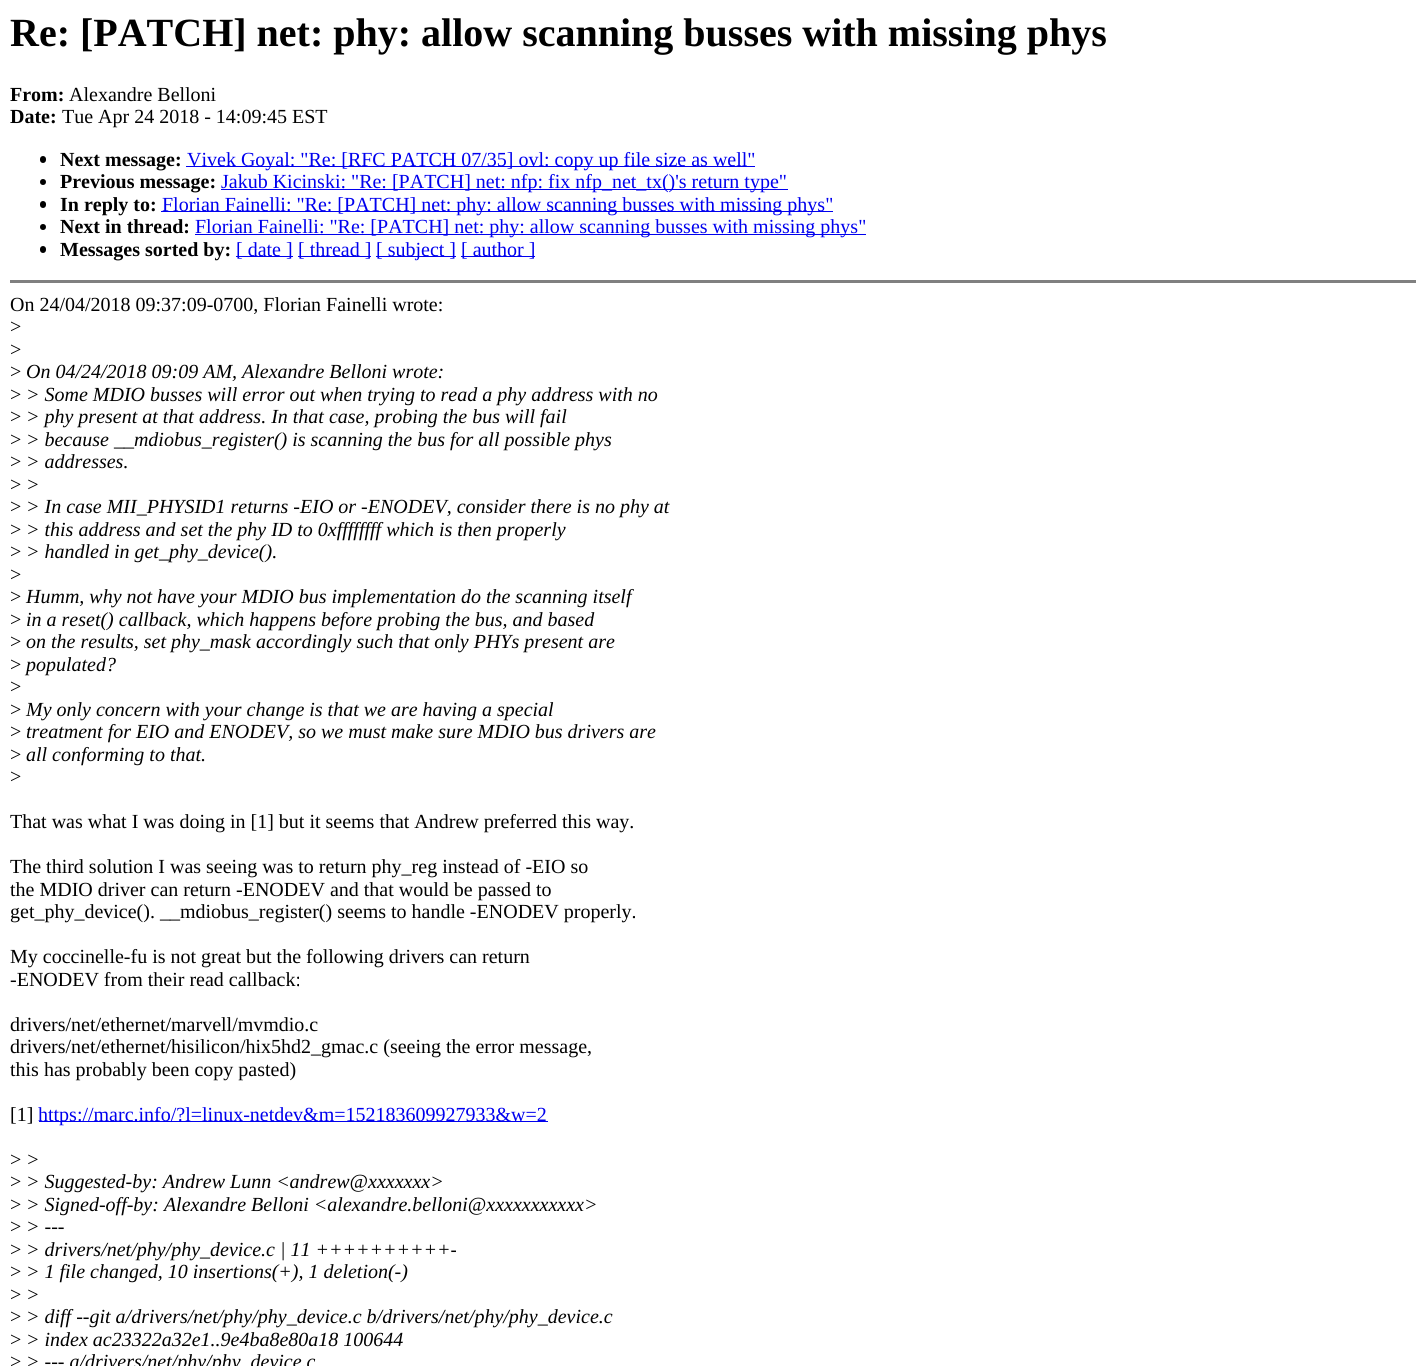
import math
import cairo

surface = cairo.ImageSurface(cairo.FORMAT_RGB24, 1426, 1366)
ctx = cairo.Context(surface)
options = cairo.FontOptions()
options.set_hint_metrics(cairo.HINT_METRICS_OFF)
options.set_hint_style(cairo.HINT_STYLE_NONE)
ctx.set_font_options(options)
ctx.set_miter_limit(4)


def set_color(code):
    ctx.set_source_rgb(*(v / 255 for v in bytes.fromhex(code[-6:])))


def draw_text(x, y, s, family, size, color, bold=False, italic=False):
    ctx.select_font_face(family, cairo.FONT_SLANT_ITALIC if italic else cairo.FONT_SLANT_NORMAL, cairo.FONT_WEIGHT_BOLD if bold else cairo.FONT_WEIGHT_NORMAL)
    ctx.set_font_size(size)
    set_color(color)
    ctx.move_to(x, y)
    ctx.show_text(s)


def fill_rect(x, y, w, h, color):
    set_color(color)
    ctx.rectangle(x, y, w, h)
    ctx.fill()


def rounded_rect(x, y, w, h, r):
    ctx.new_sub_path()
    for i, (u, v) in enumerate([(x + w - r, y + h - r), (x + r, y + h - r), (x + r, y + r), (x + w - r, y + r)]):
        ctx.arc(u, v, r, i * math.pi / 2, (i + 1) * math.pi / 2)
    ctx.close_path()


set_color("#ffffff")
ctx.paint()
draw_text(10, 46, "Re: [PATCH] net: phy: allow scanning busses with missing phys", "Liberation Serif", 40, "#000000", bold=True)
draw_text(10, 101, "From:", "Liberation Serif", 20, "#000000", bold=True)
draw_text(69, 101, "Alexandre Belloni", "Liberation Serif", 20, "#000000")
draw_text(10, 123, "Date:", "Liberation Serif", 20, "#000000", bold=True)
draw_text(62, 123, "Tue Apr 24 2018 - 14:09:45 EST", "Liberation Serif", 20, "#000000")
rounded_rect(40, 156, 6, 7, 3)
ctx.fill()
draw_text(60, 166, "Next message:", "Liberation Serif", 20, "#000000", bold=True)
fill_rect(186, 166, 569, 1, "#0000ee")
draw_text(187, 166, "Vivek Goyal: \"Re: [RFC PATCH 07/35] ovl: copy up file size as well\"", "Liberation Serif", 20, "#0000ee")
set_color("#000000")
ctx.new_path()
ctx.arc(43, 182, 3, 0, 2 * math.pi)
ctx.fill()
draw_text(60, 188, "Previous message:", "Liberation Serif", 20, "#000000", bold=True)
fill_rect(221, 189, 567, 1, "#0000ee")
draw_text(221, 188, "Jakub Kicinski: \"Re: [PATCH] net: nfp: fix nfp_net_tx()'s return type\"", "Liberation Serif", 20, "#0000ee")
set_color("#000000")
rounded_rect(40, 201, 6, 7, 3)
ctx.fill()
draw_text(60, 211, "In reply to:", "Liberation Serif", 20, "#000000", bold=True)
fill_rect(161, 211, 672, 1, "#0000ee")
draw_text(162, 211, "Florian Fainelli: \"Re: [PATCH] net: phy: allow scanning busses with missing phys\"", "Liberation Serif", 20, "#0000ee")
set_color("#000000")
ctx.new_path()
ctx.arc(43, 227, 3, 0, 2 * math.pi)
ctx.fill()
draw_text(60, 233, "Next in thread:", "Liberation Serif", 20, "#000000", bold=True)
fill_rect(195, 234, 671, 1, "#0000ee")
draw_text(195, 233, "Florian Fainelli: \"Re: [PATCH] net: phy: allow scanning busses with missing phys\"", "Liberation Serif", 20, "#0000ee")
set_color("#000000")
rounded_rect(40, 246, 6, 7, 3)
ctx.fill()
draw_text(60, 256, "Messages sorted by:", "Liberation Serif", 20, "#000000", bold=True)
fill_rect(236, 256, 57, 1, "#0000ee")
draw_text(236, 256, "[ date ]", "Liberation Serif", 20, "#0000ee")
fill_rect(298, 256, 73, 1, "#0000ee")
draw_text(298, 256, "[ thread ]", "Liberation Serif", 20, "#0000ee")
fill_rect(376, 256, 80, 1, "#0000ee")
draw_text(376, 256, "[ subject ]", "Liberation Serif", 20, "#0000ee")
fill_rect(461, 256, 74, 1, "#0000ee")
draw_text(461, 256, "[ author ]", "Liberation Serif", 20, "#0000ee")
fill_rect(10, 280, 1406, 3, "#808080")
draw_text(10, 311, "On 24/04/2018 09:37:09-0700, Florian Fainelli wrote:", "Liberation Serif", 20, "#000000")
draw_text(10, 333, ">", "Liberation Serif", 20, "#000000")
draw_text(10, 356, ">", "Liberation Serif", 20, "#000000")
draw_text(10, 378, ">", "Liberation Serif", 20, "#000000")
draw_text(26, 378, "On 04/24/2018 09:09 AM, Alexandre Belloni wrote:", "Liberation Serif", 20, "#000000", italic=True)
draw_text(10, 401, ">", "Liberation Serif", 20, "#000000")
draw_text(26, 401, "> Some MDIO busses will error out when trying to read a phy address with no", "Liberation Serif", 20, "#000000", italic=True)
draw_text(10, 423, ">", "Liberation Serif", 20, "#000000")
draw_text(26, 423, "> phy present at that address. In that case, probing the bus will fail", "Liberation Serif", 20, "#000000", italic=True)
draw_text(10, 446, ">", "Liberation Serif", 20, "#000000")
draw_text(26, 446, "> because __mdiobus_register() is scanning the bus for all possible phys", "Liberation Serif", 20, "#000000", italic=True)
draw_text(10, 468, ">", "Liberation Serif", 20, "#000000")
draw_text(26, 468, "> addresses.", "Liberation Serif", 20, "#000000", italic=True)
draw_text(10, 491, ">", "Liberation Serif", 20, "#000000")
draw_text(26, 491, ">", "Liberation Serif", 20, "#000000", italic=True)
draw_text(10, 513, ">", "Liberation Serif", 20, "#000000")
draw_text(26, 513, "> In case MII_PHYSID1 returns -EIO or -ENODEV, consider there is no phy at", "Liberation Serif", 20, "#000000", italic=True)
draw_text(10, 536, ">", "Liberation Serif", 20, "#000000")
draw_text(26, 536, "> this address and set the phy ID to 0xffffffff which is then properly", "Liberation Serif", 20, "#000000", italic=True)
draw_text(10, 558, ">", "Liberation Serif", 20, "#000000")
draw_text(26, 558, "> handled in get_phy_device().", "Liberation Serif", 20, "#000000", italic=True)
draw_text(10, 581, ">", "Liberation Serif", 20, "#000000")
draw_text(10, 603, ">", "Liberation Serif", 20, "#000000")
draw_text(26, 603, "Humm, why not have your MDIO bus implementation do the scanning itself", "Liberation Serif", 20, "#000000", italic=True)
draw_text(10, 626, ">", "Liberation Serif", 20, "#000000")
draw_text(26, 626, "in a reset() callback, which happens before probing the bus, and based", "Liberation Serif", 20, "#000000", italic=True)
draw_text(10, 648, ">", "Liberation Serif", 20, "#000000")
draw_text(26, 648, "on the results, set phy_mask accordingly such that only PHYs present are", "Liberation Serif", 20, "#000000", italic=True)
draw_text(10, 671, ">", "Liberation Serif", 20, "#000000")
draw_text(26, 671, "populated?", "Liberation Serif", 20, "#000000", italic=True)
draw_text(10, 693, ">", "Liberation Serif", 20, "#000000")
draw_text(10, 716, ">", "Liberation Serif", 20, "#000000")
draw_text(26, 716, "My only concern with your change is that we are having a special", "Liberation Serif", 20, "#000000", italic=True)
draw_text(10, 738, ">", "Liberation Serif", 20, "#000000")
draw_text(26, 738, "treatment for EIO and ENODEV, so we must make sure MDIO bus drivers are", "Liberation Serif", 20, "#000000", italic=True)
draw_text(10, 761, ">", "Liberation Serif", 20, "#000000")
draw_text(26, 761, "all conforming to that.", "Liberation Serif", 20, "#000000", italic=True)
draw_text(10, 783, ">", "Liberation Serif", 20, "#000000")
draw_text(10, 828, "That was what I was doing in [1] but it seems that Andrew preferred this way.", "Liberation Serif", 20, "#000000")
draw_text(10, 873, "The third solution I was seeing was to return phy_reg instead of -EIO so", "Liberation Serif", 20, "#000000")
draw_text(10, 896, "the MDIO driver can return -ENODEV and that would be passed to", "Liberation Serif", 20, "#000000")
draw_text(10, 918, "get_phy_device(). __mdiobus_register() seems to handle -ENODEV properly.", "Liberation Serif", 20, "#000000")
draw_text(10, 963, "My coccinelle-fu is not great but the following drivers can return", "Liberation Serif", 20, "#000000")
draw_text(10, 986, "-ENODEV from their read callback:", "Liberation Serif", 20, "#000000")
draw_text(10, 1031, "drivers/net/ethernet/marvell/mvmdio.c", "Liberation Serif", 20, "#000000")
draw_text(10, 1053, "drivers/net/ethernet/hisilicon/hix5hd2_gmac.c (seeing the error message,", "Liberation Serif", 20, "#000000")
draw_text(10, 1076, "this has probably been copy pasted)", "Liberation Serif", 20, "#000000")
draw_text(10, 1121, "[1]", "Liberation Serif", 20, "#000000")
fill_rect(39, 1121, 509, 1, "#0000ee")
draw_text(38, 1121, "https://marc.info/?l=linux-netdev&m=152183609927933&w=2", "Liberation Serif", 20, "#0000ee")
draw_text(10, 1166, ">", "Liberation Serif", 20, "#000000")
draw_text(26, 1166, ">", "Liberation Serif", 20, "#000000", italic=True)
draw_text(10, 1188, ">", "Liberation Serif", 20, "#000000")
draw_text(26, 1188, "> Suggested-by: Andrew Lunn <andrew@xxxxxxx>", "Liberation Serif", 20, "#000000", italic=True)
draw_text(10, 1211, ">", "Liberation Serif", 20, "#000000")
draw_text(26, 1211, "> Signed-off-by: Alexandre Belloni <alexandre.belloni@xxxxxxxxxxx>", "Liberation Serif", 20, "#000000", italic=True)
draw_text(10, 1233, ">", "Liberation Serif", 20, "#000000")
draw_text(26, 1233, "> ---", "Liberation Serif", 20, "#000000", italic=True)
draw_text(10, 1256, ">", "Liberation Serif", 20, "#000000")
draw_text(26, 1256, "> drivers/net/phy/phy_device.c | 11 ++++++++++-", "Liberation Serif", 20, "#000000", italic=True)
draw_text(10, 1278, ">", "Liberation Serif", 20, "#000000")
draw_text(26, 1278, "> 1 file changed, 10 insertions(+), 1 deletion(-)", "Liberation Serif", 20, "#000000", italic=True)
draw_text(10, 1301, ">", "Liberation Serif", 20, "#000000")
draw_text(26, 1301, ">", "Liberation Serif", 20, "#000000", italic=True)
draw_text(10, 1323, ">", "Liberation Serif", 20, "#000000")
draw_text(26, 1323, "> diff --git a/drivers/net/phy/phy_device.c b/drivers/net/phy/phy_device.c", "Liberation Serif", 20, "#000000", italic=True)
draw_text(10, 1346, ">", "Liberation Serif", 20, "#000000")
draw_text(26, 1346, "> index ac23322a32e1..9e4ba8e80a18 100644", "Liberation Serif", 20, "#000000", italic=True)
draw_text(10, 1368, ">", "Liberation Serif", 20, "#000000")
draw_text(26, 1368, "> --- a/drivers/net/phy/phy_device.c", "Liberation Serif", 20, "#000000", italic=True)
surface.write_to_png("output.png")
